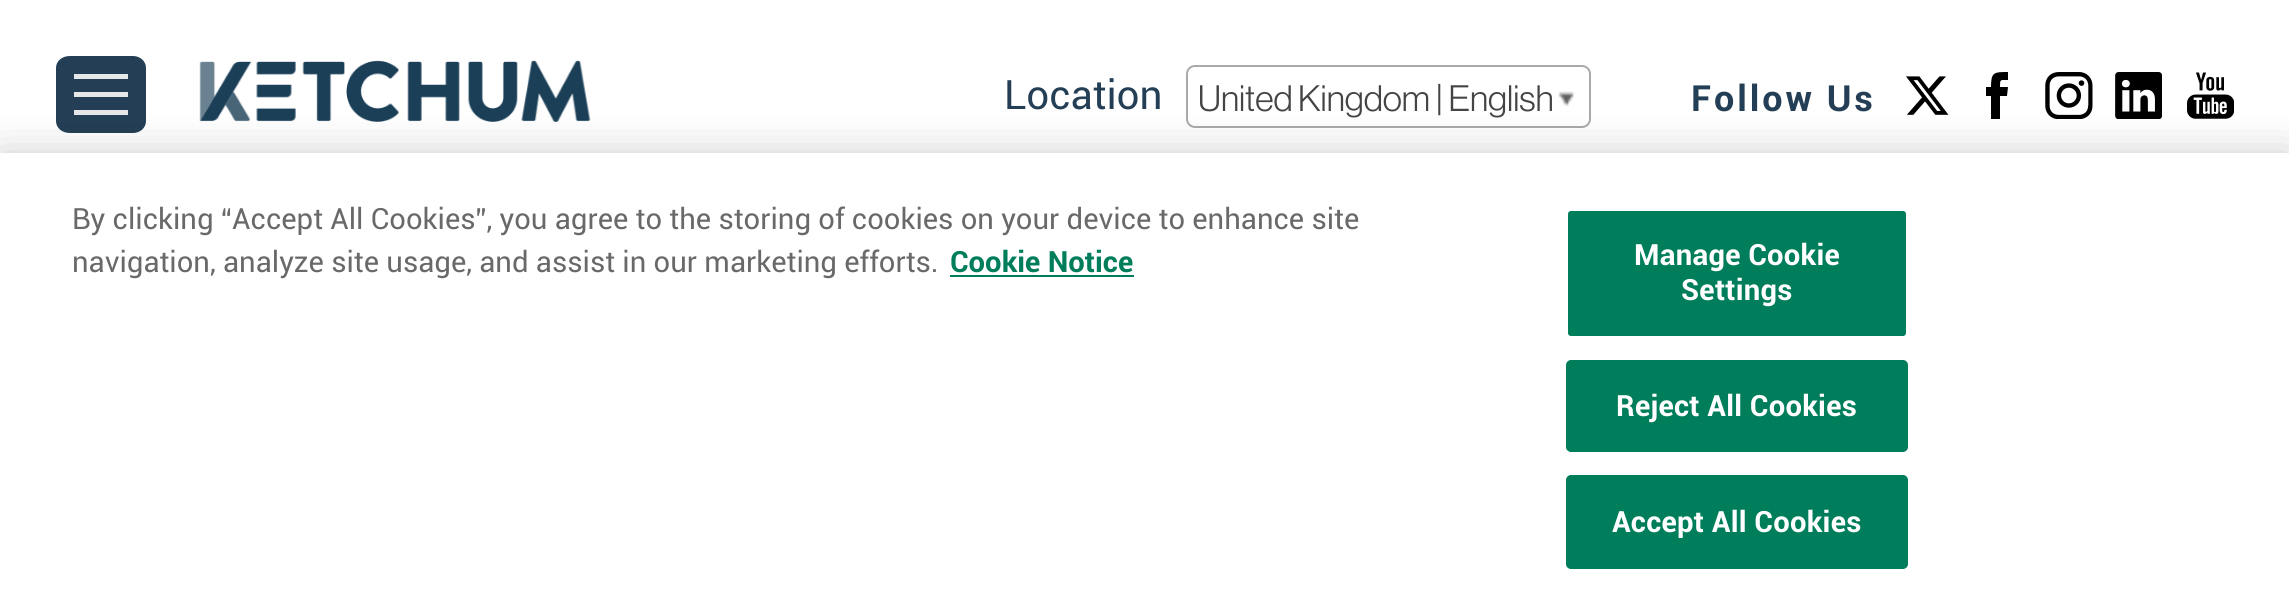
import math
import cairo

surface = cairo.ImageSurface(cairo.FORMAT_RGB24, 2289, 613)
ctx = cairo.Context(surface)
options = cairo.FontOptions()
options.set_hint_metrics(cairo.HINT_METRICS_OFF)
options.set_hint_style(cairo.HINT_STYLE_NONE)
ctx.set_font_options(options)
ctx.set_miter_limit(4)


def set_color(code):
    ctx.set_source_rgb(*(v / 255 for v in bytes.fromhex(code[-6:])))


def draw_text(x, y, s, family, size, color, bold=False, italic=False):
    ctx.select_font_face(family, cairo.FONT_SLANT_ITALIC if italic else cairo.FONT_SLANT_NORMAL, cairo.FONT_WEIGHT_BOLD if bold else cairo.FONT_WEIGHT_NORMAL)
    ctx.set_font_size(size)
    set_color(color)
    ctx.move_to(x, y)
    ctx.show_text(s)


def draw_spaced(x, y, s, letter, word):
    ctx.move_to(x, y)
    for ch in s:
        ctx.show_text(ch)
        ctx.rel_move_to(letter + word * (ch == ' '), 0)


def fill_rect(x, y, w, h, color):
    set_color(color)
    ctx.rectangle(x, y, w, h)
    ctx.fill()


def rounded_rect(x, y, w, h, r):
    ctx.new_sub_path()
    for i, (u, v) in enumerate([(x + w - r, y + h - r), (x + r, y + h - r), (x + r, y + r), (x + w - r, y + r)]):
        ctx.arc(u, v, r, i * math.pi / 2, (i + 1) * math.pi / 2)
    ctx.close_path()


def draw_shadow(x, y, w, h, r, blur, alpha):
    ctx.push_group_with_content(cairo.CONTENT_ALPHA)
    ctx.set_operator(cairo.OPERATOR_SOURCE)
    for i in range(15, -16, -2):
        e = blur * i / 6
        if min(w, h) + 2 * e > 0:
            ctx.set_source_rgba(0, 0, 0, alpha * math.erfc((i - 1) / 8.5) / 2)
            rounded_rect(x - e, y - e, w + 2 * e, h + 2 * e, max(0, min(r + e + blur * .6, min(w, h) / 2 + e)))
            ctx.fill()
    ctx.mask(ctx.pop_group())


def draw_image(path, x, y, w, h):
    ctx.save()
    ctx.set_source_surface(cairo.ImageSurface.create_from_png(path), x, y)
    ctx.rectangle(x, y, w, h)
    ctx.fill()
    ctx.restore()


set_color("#ffffff")
ctx.paint()
set_color("#243f55")
ctx.new_path()
ctx.move_to(70, 56)
ctx.line_to(133, 56)
ctx.curve_to(140, 56, 146, 61, 146, 68)
ctx.line_to(146, 121)
ctx.curve_to(146, 128, 140, 133, 133, 133)
ctx.line_to(70, 133)
ctx.curve_to(62, 133, 56, 128, 56, 121)
ctx.line_to(56, 68)
ctx.curve_to(56, 61, 62, 56, 70, 56)
ctx.close_path()
ctx.fill()
fill_rect(74, 74, 54, 5, "#e6e7e8")
fill_rect(74, 92, 54, 5, "#e6e7e8")
fill_rect(74, 110, 54, 5, "#e6e7e8")
draw_image("assets/img1.png", 199, 60, 392, 62)
draw_text(1004, 109, "Location", "Roboto", 40.5, "#243f55")
rounded_rect(1187, 66, 403, 61, 8)
set_color("#aaaaaa")
ctx.stroke()
draw_text(1198, 111, "United Kingdom | English", "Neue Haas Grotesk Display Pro", 36, "#444444")
draw_image("assets/img2.png", 1558, 91, 17, 16)
ctx.select_font_face("Roboto", cairo.FONT_SLANT_NORMAL, cairo.FONT_WEIGHT_BOLD)
set_color("#243f55")
draw_spaced(1691, 111, "Follow Us", 2.9, 0)
draw_image("assets/img3.png", 1906, 76, 43, 39)
set_color("#000000")
ctx.new_path()
ctx.move_to(2008, 87)
ctx.line_to(2000, 87)
ctx.curve_to(2000, 79, 2000, 80, 2008, 80)
ctx.line_to(2008, 72)
ctx.curve_to(1994, 72, 1991, 72, 1991, 87)
ctx.line_to(1986, 87)
ctx.line_to(1986, 96)
ctx.line_to(1991, 96)
ctx.line_to(1991, 119)
ctx.line_to(2000, 119)
ctx.line_to(2000, 96)
ctx.line_to(2007, 96)
ctx.close_path()
ctx.fill()
draw_image("assets/img4.png", 2045, 72, 48, 47)
draw_image("assets/img5.png", 2115, 72, 47, 47)
draw_image("assets/img6.png", 2187, 72, 47, 47)
set_color("#000000")
draw_shadow(0, 153, 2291, 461, 0, 20, 0.2)
fill_rect(0, 153, 2289, 460, "#ffffff")
draw_text(72, 229, "By clicking “Accept All Cookies”, you agree to the storing of cookies on your device to enhance site", "Roboto", 29.25, "#696969")
draw_text(72, 272, "navigation, analyze site usage, and assist in our marketing efforts.", "Roboto", 29.25, "#696969")
draw_text(950, 272, "Cookie Notice", "Roboto", 29.25, "#007d5a", bold=True)
fill_rect(950, 275, 184, 2, "#007d5a")
rounded_rect(1567, 210, 340, 127, 4)
ctx.fill_preserve()
set_color("#ffffff")
ctx.stroke()
draw_spaced(1634, 265, "Manage Cookie", 0.25, 0)
draw_spaced(1681, 300, "Settings", 0.25, 0)
set_color("#007d5a")
rounded_rect(1567, 361, 340, 90, 4)
ctx.fill_preserve()
ctx.stroke()
set_color("#ffffff")
draw_spaced(1616, 416, "Reject All Cookies", 0.25, 0)
set_color("#007d5a")
rounded_rect(1567, 476, 340, 92, 4)
ctx.fill_preserve()
ctx.stroke()
set_color("#ffffff")
draw_spaced(1612, 532, "Accept All Cookies", 0.25, 0)
surface.write_to_png("output.png")
